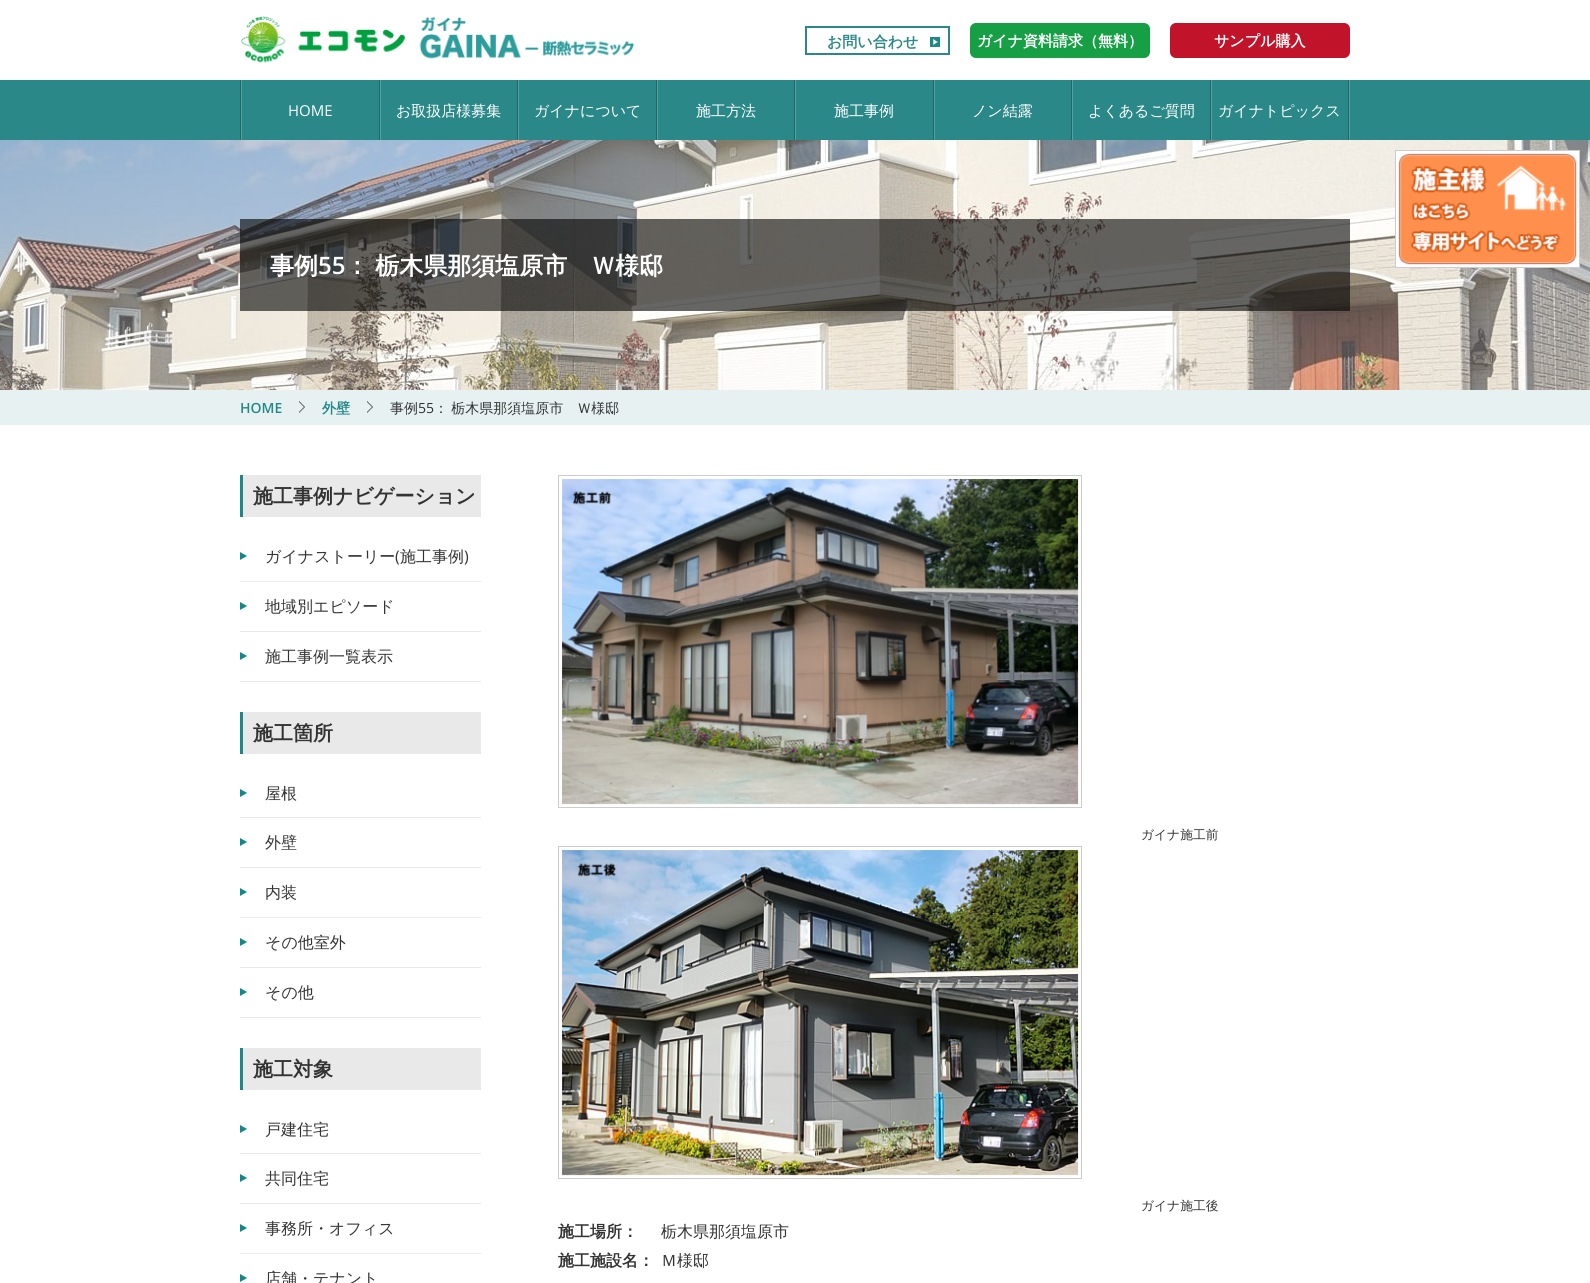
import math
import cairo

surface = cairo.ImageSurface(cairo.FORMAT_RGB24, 1590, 1283)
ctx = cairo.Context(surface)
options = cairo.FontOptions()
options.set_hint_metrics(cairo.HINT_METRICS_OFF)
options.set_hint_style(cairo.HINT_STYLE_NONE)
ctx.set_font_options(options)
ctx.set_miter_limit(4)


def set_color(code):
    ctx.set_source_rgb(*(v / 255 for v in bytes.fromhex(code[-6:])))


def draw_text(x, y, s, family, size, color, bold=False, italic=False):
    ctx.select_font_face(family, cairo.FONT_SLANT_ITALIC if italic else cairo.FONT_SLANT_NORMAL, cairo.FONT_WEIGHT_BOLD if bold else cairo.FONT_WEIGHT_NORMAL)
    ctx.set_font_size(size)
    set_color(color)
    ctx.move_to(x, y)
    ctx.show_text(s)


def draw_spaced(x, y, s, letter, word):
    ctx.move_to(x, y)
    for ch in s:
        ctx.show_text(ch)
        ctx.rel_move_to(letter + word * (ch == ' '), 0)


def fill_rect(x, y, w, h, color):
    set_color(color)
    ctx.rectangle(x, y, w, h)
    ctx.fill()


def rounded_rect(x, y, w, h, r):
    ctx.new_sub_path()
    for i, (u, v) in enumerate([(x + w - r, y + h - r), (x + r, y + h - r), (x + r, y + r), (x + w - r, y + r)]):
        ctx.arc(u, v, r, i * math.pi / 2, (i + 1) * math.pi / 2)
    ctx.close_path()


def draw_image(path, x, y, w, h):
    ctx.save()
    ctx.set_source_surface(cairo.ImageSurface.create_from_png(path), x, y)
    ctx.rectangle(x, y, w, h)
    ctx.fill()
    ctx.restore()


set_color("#ffffff")
ctx.paint()
draw_image("assets/img1.png", 241, 16, 394, 47)
draw_image("assets/img2.png", 930, 37, 10, 10)
ctx.rectangle(806, 27, 143, 27)
set_color("#2b8888")
ctx.stroke()
draw_text(827, 47, "お問い合わせ", "WenQuanYi Zen Hei", 15, "#2b8888", bold=True)
set_color("#169f45")
rounded_rect(970, 23, 180, 35, 6)
ctx.fill()
draw_text(977, 46, "ガイナ資料請求（無料）", "WenQuanYi Zen Hei", 15, "#ffffff", bold=True)
set_color("#c11329")
rounded_rect(1170, 23, 180, 35, 6)
ctx.fill()
draw_text(1214, 46, "サンプル購入", "WenQuanYi Zen Hei", 15, "#ffffff", bold=True)
fill_rect(0, 80, 1590, 60, "#2b8888")
fill_rect(1349, 80, 1, 60, "#4fa4a4")
fill_rect(240, 80, 1, 60, "#246666")
fill_rect(379, 80, 1, 60, "#246666")
fill_rect(241, 80, 1, 60, "#4fa4a4")
draw_text(288, 116, "HOME", "Open Sans", 15, "#ffffff")
fill_rect(517, 80, 1, 60, "#246666")
fill_rect(380, 80, 1, 60, "#4fa4a4")
draw_text(396, 116, "お取扱店様募集", "WenQuanYi Zen Hei Medium", 15, "#ffffff")
fill_rect(656, 80, 1, 60, "#246666")
fill_rect(518, 80, 1, 60, "#4fa4a4")
draw_text(534, 116, "ガイナについて", "WenQuanYi Zen Hei Medium", 15, "#ffffff")
fill_rect(794, 80, 1, 60, "#246666")
fill_rect(657, 80, 1, 60, "#4fa4a4")
draw_text(696, 116, "施工方法", "WenQuanYi Zen Hei Medium", 15, "#ffffff")
fill_rect(933, 80, 1, 60, "#246666")
fill_rect(795, 80, 1, 60, "#4fa4a4")
draw_text(834, 116, "施工事例", "WenQuanYi Zen Hei Medium", 15, "#ffffff")
fill_rect(1071, 80, 1, 60, "#246666")
fill_rect(934, 80, 1, 60, "#4fa4a4")
draw_text(972, 116, "ノン結露", "WenQuanYi Zen Hei Medium", 15, "#ffffff")
fill_rect(1210, 80, 1, 60, "#246666")
fill_rect(1072, 80, 1, 60, "#4fa4a4")
draw_text(1088, 116, "よくあるご質問", "WenQuanYi Zen Hei Medium", 15, "#ffffff")
fill_rect(1348, 80, 1, 60, "#246666")
fill_rect(1211, 80, 1, 60, "#4fa4a4")
draw_text(1218, 116, "ガイナトピックス", "WenQuanYi Zen Hei Medium", 15, "#ffffff")
draw_image("assets/img3.png", 0, 140, 1590, 250)
ctx.set_source_rgba(0, 0, 0, 0.6)
ctx.rectangle(240, 219, 1110, 92)
ctx.fill()
draw_text(270, 274, "事例", "WenQuanYi Zen Hei", 24, "#ffffff", bold=True)
draw_text(318, 274, "55", "Open Sans SemiBold", 24, "#ffffff")
ctx.select_font_face("WenQuanYi Zen Hei", cairo.FONT_SLANT_NORMAL, cairo.FONT_WEIGHT_BOLD)
draw_spaced(345, 274, "： 栃木県那須塩原市　Ｗ様邸", 0, -1)
fill_rect(0, 390, 1590, 35, "#e7f1f2")
draw_text(240, 413, "HOME", "Open Sans SemiBold", 14, "#258889")
set_color("#333333")
ctx.new_path()
ctx.move_to(299, 413)
ctx.line_to(299, 401)
ctx.line_to(305, 407)
ctx.close_path()
ctx.fill()
set_color("#e7f1f2")
ctx.new_path()
ctx.move_to(299, 412)
ctx.line_to(299, 402)
ctx.line_to(304, 407)
ctx.close_path()
ctx.fill()
draw_text(322, 413, "外壁", "WenQuanYi Zen Hei", 14, "#258889", bold=True)
set_color("#333333")
ctx.new_path()
ctx.move_to(367, 413)
ctx.line_to(367, 401)
ctx.line_to(373, 407)
ctx.close_path()
ctx.fill()
set_color("#e7f1f2")
ctx.new_path()
ctx.move_to(367, 412)
ctx.line_to(367, 402)
ctx.line_to(372, 407)
ctx.close_path()
ctx.fill()
draw_text(390, 413, "事例", "WenQuanYi Zen Hei Medium", 14, "#333333")
draw_text(418, 413, "55", "Open Sans", 14, "#333333")
ctx.select_font_face("WenQuanYi Zen Hei Medium")
draw_spaced(434, 413, "： 栃木県那須塩原市　Ｗ様邸", 0, -1)
fill_rect(243, 475, 238, 42, "#e9e9e9")
fill_rect(240, 475, 3, 42, "#1d8889")
draw_text(253, 503, "施工事例ナビゲーション", "WenQuanYi Zen Hei", 20, "#333333", bold=True)
fill_rect(240, 581, 241, 1, "#e9e9e9")
draw_image("assets/img4.png", 240, 552, 7, 8)
draw_text(265, 562, "ガイナストーリー 施工事例", "WenQuanYi Zen Hei Medium", 16, "#333333")
draw_text(395, 562, "(", "Open Sans", 16, "#333333")
draw_text(464, 562, ")", "Open Sans", 16, "#333333")
fill_rect(240, 631, 241, 1, "#e9e9e9")
draw_image("assets/img4.png", 240, 602, 7, 8)
draw_text(265, 612, "地域別エピソード", "WenQuanYi Zen Hei Medium", 16, "#333333")
fill_rect(240, 681, 241, 1, "#e9e9e9")
draw_image("assets/img4.png", 240, 652, 7, 8)
draw_text(265, 662, "施工事例一覧表示", "WenQuanYi Zen Hei Medium", 16, "#333333")
fill_rect(243, 712, 238, 42, "#e9e9e9")
fill_rect(240, 712, 3, 42, "#1d8889")
draw_text(253, 740, "施工箇所", "WenQuanYi Zen Hei", 20, "#333333", bold=True)
fill_rect(240, 817, 241, 1, "#e9e9e9")
draw_image("assets/img4.png", 240, 789, 7, 8)
draw_text(265, 799, "屋根", "WenQuanYi Zen Hei Medium", 16, "#333333")
fill_rect(240, 867, 241, 1, "#e9e9e9")
draw_image("assets/img4.png", 240, 838, 7, 8)
draw_text(265, 848, "外壁", "WenQuanYi Zen Hei Medium", 16, "#333333")
fill_rect(240, 917, 241, 1, "#e9e9e9")
draw_image("assets/img4.png", 240, 888, 7, 8)
draw_text(265, 898, "内装", "WenQuanYi Zen Hei Medium", 16, "#333333")
fill_rect(240, 967, 241, 1, "#e9e9e9")
draw_image("assets/img4.png", 240, 938, 7, 8)
draw_text(265, 948, "その他室外", "WenQuanYi Zen Hei Medium", 16, "#333333")
fill_rect(240, 1017, 241, 1, "#e9e9e9")
draw_image("assets/img4.png", 240, 988, 7, 8)
draw_text(265, 998, "その他", "WenQuanYi Zen Hei Medium", 16, "#333333")
fill_rect(243, 1048, 238, 42, "#e9e9e9")
fill_rect(240, 1048, 3, 42, "#1d8889")
draw_text(253, 1076, "施工対象", "WenQuanYi Zen Hei", 20, "#333333", bold=True)
fill_rect(240, 1153, 241, 1, "#e9e9e9")
draw_image("assets/img4.png", 240, 1125, 7, 8)
draw_text(265, 1135, "戸建住宅", "WenQuanYi Zen Hei Medium", 16, "#333333")
fill_rect(240, 1203, 241, 1, "#e9e9e9")
draw_image("assets/img4.png", 240, 1174, 7, 8)
draw_text(265, 1184, "共同住宅", "WenQuanYi Zen Hei Medium", 16, "#333333")
fill_rect(240, 1253, 241, 1, "#e9e9e9")
draw_image("assets/img4.png", 240, 1224, 7, 8)
draw_text(265, 1234, "事務所・オフィス", "WenQuanYi Zen Hei Medium", 16, "#333333")
draw_image("assets/img4.png", 240, 1274, 7, 8)
draw_text(265, 1284, "店舗・テナント", "WenQuanYi Zen Hei Medium", 16, "#333333")
ctx.rectangle(558.5, 475.5, 523, 332)
set_color("#cccccc")
ctx.set_line_width(1)
ctx.stroke()
draw_image("assets/img5.png", 562, 479, 517, 326)
draw_text(1141, 839, "ガイナ施工前", "WenQuanYi Zen Hei Medium", 12.75, "#333333")
ctx.rectangle(558.5, 846.5, 523, 332)
set_color("#cccccc")
ctx.stroke()
draw_image("assets/img6.png", 562, 850, 517, 326)
draw_text(1141, 1210, "ガイナ施工後", "WenQuanYi Zen Hei Medium", 12.75, "#333333")
draw_text(558, 1237, "施工場所：", "WenQuanYi Zen Hei", 16, "#333333", bold=True)
draw_text(661, 1237, "栃木県那須塩原市", "WenQuanYi Zen Hei Medium", 16, "#333333")
draw_text(558, 1266, "施工施設名：", "WenQuanYi Zen Hei", 16, "#333333", bold=True)
draw_text(661, 1266, "Ｍ様邸", "WenQuanYi Zen Hei Medium", 16, "#333333")
set_color("#ffffff")
ctx.rectangle(1395.5, 150.5, 184, 117)
ctx.fill_preserve()
set_color("#cccccc")
ctx.stroke()
draw_image("assets/img7.png", 1398, 153, 179, 112)
surface.write_to_png("output.png")
